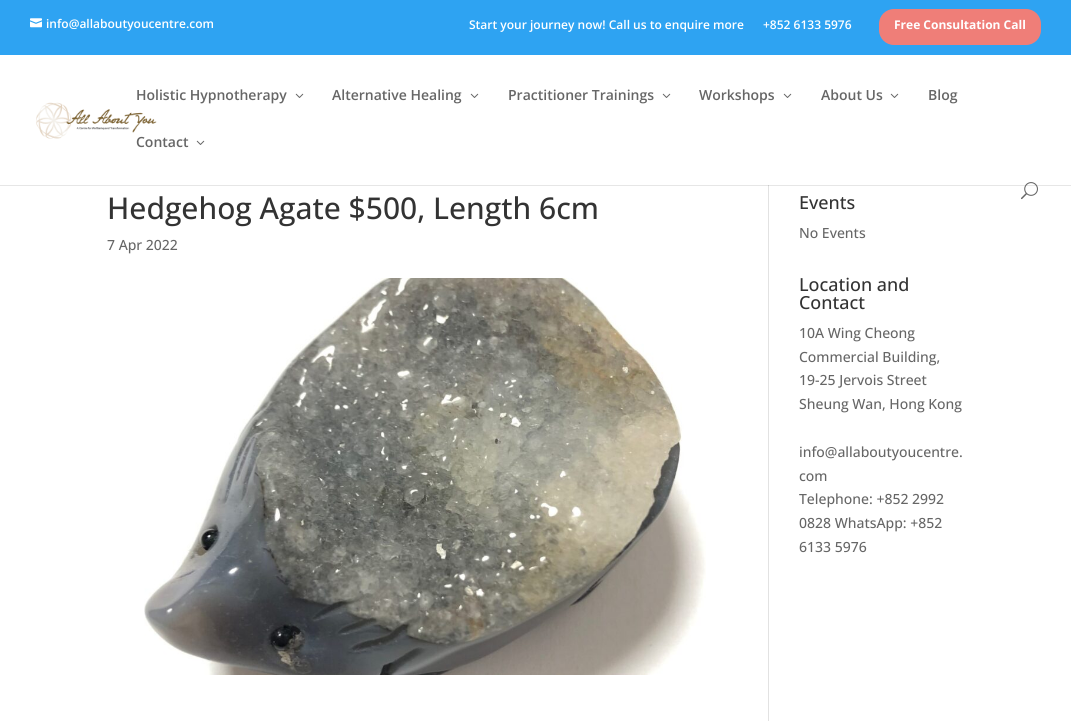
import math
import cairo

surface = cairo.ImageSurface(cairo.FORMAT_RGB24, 1071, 721)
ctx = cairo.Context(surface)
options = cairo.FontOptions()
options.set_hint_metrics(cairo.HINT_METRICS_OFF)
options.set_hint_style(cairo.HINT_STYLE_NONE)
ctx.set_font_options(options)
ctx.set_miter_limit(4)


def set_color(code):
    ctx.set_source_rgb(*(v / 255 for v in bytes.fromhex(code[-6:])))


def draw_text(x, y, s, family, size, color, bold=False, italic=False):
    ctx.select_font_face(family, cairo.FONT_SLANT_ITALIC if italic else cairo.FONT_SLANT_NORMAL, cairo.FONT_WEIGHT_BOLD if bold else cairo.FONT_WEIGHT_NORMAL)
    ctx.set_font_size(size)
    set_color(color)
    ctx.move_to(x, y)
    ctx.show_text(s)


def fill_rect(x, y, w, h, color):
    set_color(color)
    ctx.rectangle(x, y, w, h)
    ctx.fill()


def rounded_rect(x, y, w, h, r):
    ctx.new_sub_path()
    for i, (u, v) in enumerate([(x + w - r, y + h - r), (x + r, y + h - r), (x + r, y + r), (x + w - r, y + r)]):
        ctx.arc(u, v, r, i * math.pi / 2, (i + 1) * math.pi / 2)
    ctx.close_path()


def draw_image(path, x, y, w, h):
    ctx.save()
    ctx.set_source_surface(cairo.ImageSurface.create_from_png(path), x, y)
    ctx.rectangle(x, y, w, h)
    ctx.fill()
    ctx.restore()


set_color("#ffffff")
ctx.paint()
fill_rect(0, 0, 1071, 55, "#2ea3f2")
draw_image("assets/img1.png", 30, 18, 12, 10)
draw_text(46, 28, "info@allaboutyoucentre.com", "Open Sans SemiBold", 12, "#ffffff")
draw_text(469, 29, "Start your journey now! Call us to enquire more", "Open Sans SemiBold", 12, "#ffffff")
draw_text(763, 29, "+852 6133 5976", "Open Sans SemiBold", 12, "#ffffff")
set_color("#ef7e78")
rounded_rect(879, 9, 162, 36, 15)
ctx.fill()
draw_text(894, 29, "Free Consultation Call", "Open Sans", 12, "#ffffff", bold=True)
draw_image("assets/img2.png", 36, 102, 121, 37)
draw_text(136, 100, "Holistic Hypnotherapy", "Open Sans SemiBold", 14, "#666666")
draw_image("assets/img3.png", 295, 93, 9, 5)
draw_text(332, 100, "Alternative Healing", "Open Sans SemiBold", 14, "#666666")
draw_image("assets/img3.png", 470, 93, 9, 5)
draw_text(508, 100, "Practitioner Trainings", "Open Sans SemiBold", 14, "#666666")
draw_image("assets/img3.png", 662, 93, 9, 5)
draw_text(699, 100, "Workshops", "Open Sans SemiBold", 14, "#666666")
draw_image("assets/img3.png", 783, 93, 9, 5)
draw_text(821, 100, "About Us", "Open Sans SemiBold", 14, "#666666")
draw_image("assets/img3.png", 890, 93, 9, 5)
draw_text(928, 100, "Blog", "Open Sans SemiBold", 14, "#666666")
draw_text(136, 147, "Contact", "Open Sans SemiBold", 14, "#666666")
draw_image("assets/img3.png", 196, 140, 9, 5)
fill_rect(0, 185, 1071, 1, "#e6e6e6")
draw_image("assets/img4.png", 1021, 182, 17, 18)
fill_rect(768, 186, 1, 535, "#e2e2e2")
fill_rect(768, 185, 1, 1, "#cbcbcb")
draw_text(107, 219, "Hedgehog Agate $500, Length 6cm", "Open Sans Medium", 30, "#333333")
draw_text(107, 250, "7 Apr 2022", "Open Sans Medium", 14, "#666666")
draw_image("assets/img5.png", 144, 278, 562, 397)
draw_text(799, 209, "Events", "Open Sans Medium", 18, "#333333")
draw_text(799, 238, "No Events", "Open Sans Medium", 14, "#666666")
draw_text(799, 291, "Location and", "Open Sans Medium", 18, "#333333")
draw_text(799, 309, "Contact", "Open Sans Medium", 18, "#333333")
draw_text(799, 338, "10A Wing Cheong", "Open Sans Medium", 14, "#666666")
draw_text(799, 362, "Commercial Building,", "Open Sans Medium", 14, "#666666")
draw_text(799, 385, "19-25 Jervois Street", "Open Sans Medium", 14, "#666666")
draw_text(799, 409, "Sheung Wan, Hong Kong", "Open Sans Medium", 14, "#666666")
draw_text(799, 457, "info@allaboutyoucentre.", "Open Sans Medium", 14, "#666666")
draw_text(799, 481, "com", "Open Sans Medium", 14, "#666666")
draw_text(799, 504, "Telephone: +852 2992", "Open Sans Medium", 14, "#666666")
draw_text(799, 528, "0828 WhatsApp: +852", "Open Sans Medium", 14, "#666666")
draw_text(799, 552, "6133 5976", "Open Sans Medium", 14, "#666666")
surface.write_to_png("output.png")
